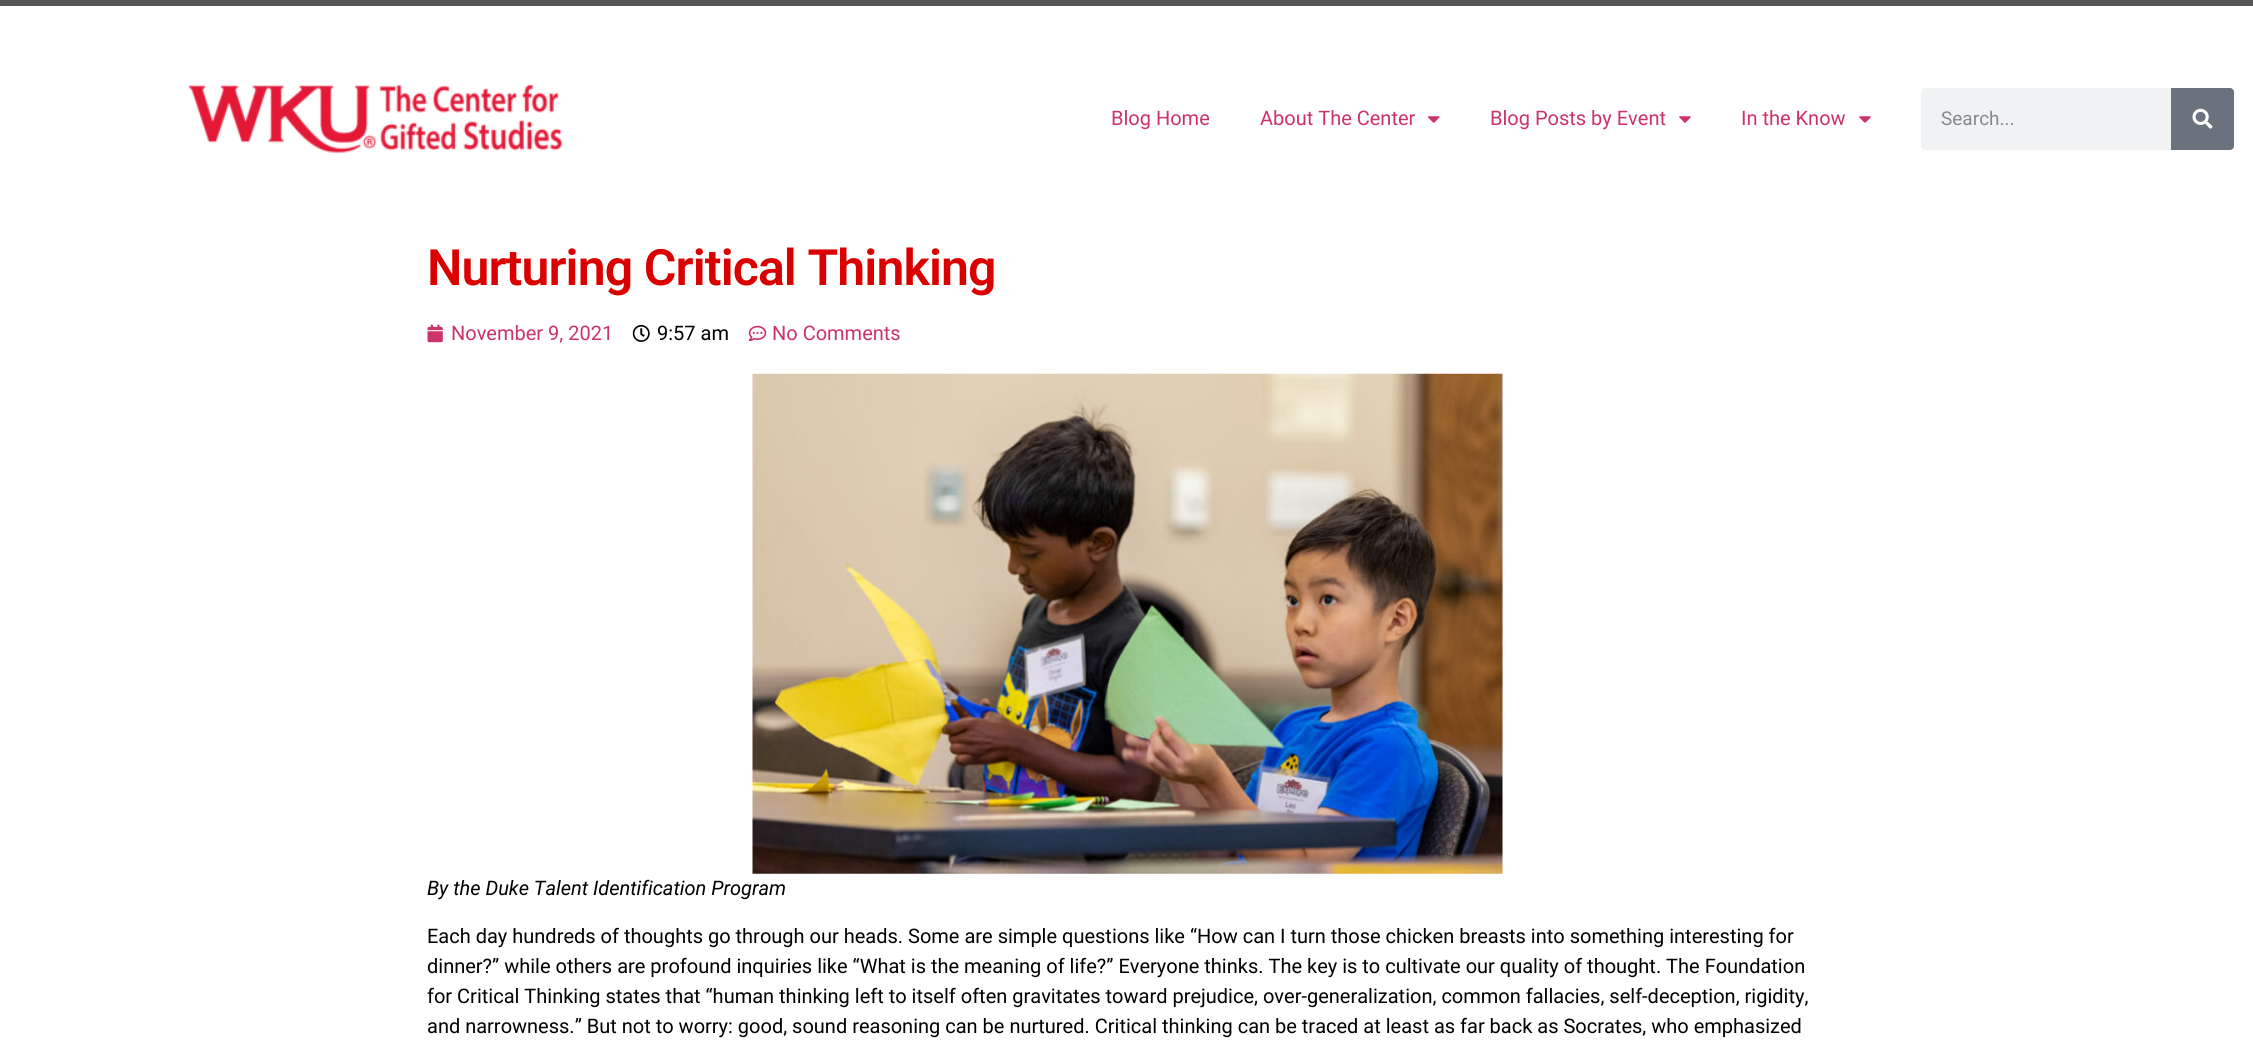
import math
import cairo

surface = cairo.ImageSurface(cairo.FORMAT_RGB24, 2253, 1045)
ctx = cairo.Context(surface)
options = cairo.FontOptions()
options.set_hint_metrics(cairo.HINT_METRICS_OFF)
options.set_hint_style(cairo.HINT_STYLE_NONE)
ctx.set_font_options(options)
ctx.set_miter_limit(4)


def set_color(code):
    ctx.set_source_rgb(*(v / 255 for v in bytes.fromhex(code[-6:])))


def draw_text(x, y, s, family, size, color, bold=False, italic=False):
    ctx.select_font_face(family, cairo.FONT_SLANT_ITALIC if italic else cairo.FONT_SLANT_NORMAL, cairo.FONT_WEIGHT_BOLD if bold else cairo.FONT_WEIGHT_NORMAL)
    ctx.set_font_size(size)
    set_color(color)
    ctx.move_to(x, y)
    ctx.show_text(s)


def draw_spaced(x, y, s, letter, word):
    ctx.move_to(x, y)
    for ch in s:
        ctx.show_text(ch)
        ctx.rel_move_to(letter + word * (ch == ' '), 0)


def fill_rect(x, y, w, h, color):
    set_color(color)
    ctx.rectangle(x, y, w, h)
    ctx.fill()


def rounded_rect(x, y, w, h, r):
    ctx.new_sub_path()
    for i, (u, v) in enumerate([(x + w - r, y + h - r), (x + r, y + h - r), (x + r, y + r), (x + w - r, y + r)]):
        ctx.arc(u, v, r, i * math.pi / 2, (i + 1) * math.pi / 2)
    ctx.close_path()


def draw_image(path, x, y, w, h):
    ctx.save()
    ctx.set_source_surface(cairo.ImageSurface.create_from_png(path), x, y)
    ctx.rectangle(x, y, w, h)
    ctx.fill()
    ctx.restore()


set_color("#ffffff")
ctx.paint()
fill_rect(0, 0, 2253, 6, "#555555")
draw_image("assets/img1.png", 188, 84, 375, 70)
draw_text(1111, 125, "Blog Home", "Roboto", 20, "#cc3366")
draw_text(1260, 125, "About The Center", "Roboto", 20, "#cc3366")
draw_image("assets/img2.png", 1428, 116, 12, 7)
draw_text(1490, 125, "Blog Posts by Event", "Roboto", 20, "#cc3366")
draw_image("assets/img3.png", 1679, 116, 12, 7)
draw_text(1741, 125, "In the Know", "Roboto", 20, "#cc3366")
draw_image("assets/img3.png", 1859, 116, 12, 7)
set_color("#f1f2f3")
rounded_rect(1921, 88, 313, 62, 4)
ctx.fill()
draw_text(1941, 125, "Search...", "Roboto", 19, "#868a8e")
set_color("#69727d")
ctx.new_path()
ctx.move_to(2171, 88)
ctx.line_to(2230, 88)
ctx.curve_to(2232, 88, 2234, 90, 2234, 92)
ctx.line_to(2234, 146)
ctx.curve_to(2234, 148, 2232, 150, 2230, 150)
ctx.line_to(2171, 150)
ctx.close_path()
ctx.fill()
draw_image("assets/img4.png", 2192, 108, 21, 21)
ctx.select_font_face("Roboto SemiBold")
ctx.set_font_size(50)
set_color("#da0000")
draw_spaced(427, 285, "Nurturing Critical Thinking", -0.9, 0)
draw_image("assets/img5.png", 427, 324, 16, 19)
draw_text(451, 340, "November 9, 2021", "Roboto", 20, "#cc3366")
draw_image("assets/img6.png", 632, 325, 18, 17)
draw_text(657, 340, "9:57 am", "Roboto", 20, "#000000")
draw_image("assets/img7.png", 748, 325, 19, 17)
draw_text(772, 340, "No Comments", "Roboto", 20, "#cc3366")
draw_image("assets/img8.png", 752, 373, 751, 501)
draw_text(427, 895, "By the Duke Talent Identification Program", "Roboto", 20, "#000000", italic=True)
draw_text(427, 943, "Each day hundreds of thoughts go through our heads. Some are simple questions like “How can I turn those chicken breasts into something interesting for", "Roboto", 20, "#000000")
draw_text(427, 973, "dinner?” while others are profound inquiries like “What is the meaning of life?” Everyone thinks. The key is to cultivate our quality of thought. The Foundation", "Roboto", 20, "#000000")
draw_text(427, 1003, "for Critical Thinking states that “human thinking left to itself often gravitates toward prejudice, over-generalization, common fallacies, self-deception, rigidity,", "Roboto", 20, "#000000")
draw_text(427, 1033, "and narrowness.” But not to worry: good, sound reasoning can be nurtured. Critical thinking can be traced at least as far back as Socrates, who emphasized", "Roboto", 20, "#000000")
surface.write_to_png("output.png")
